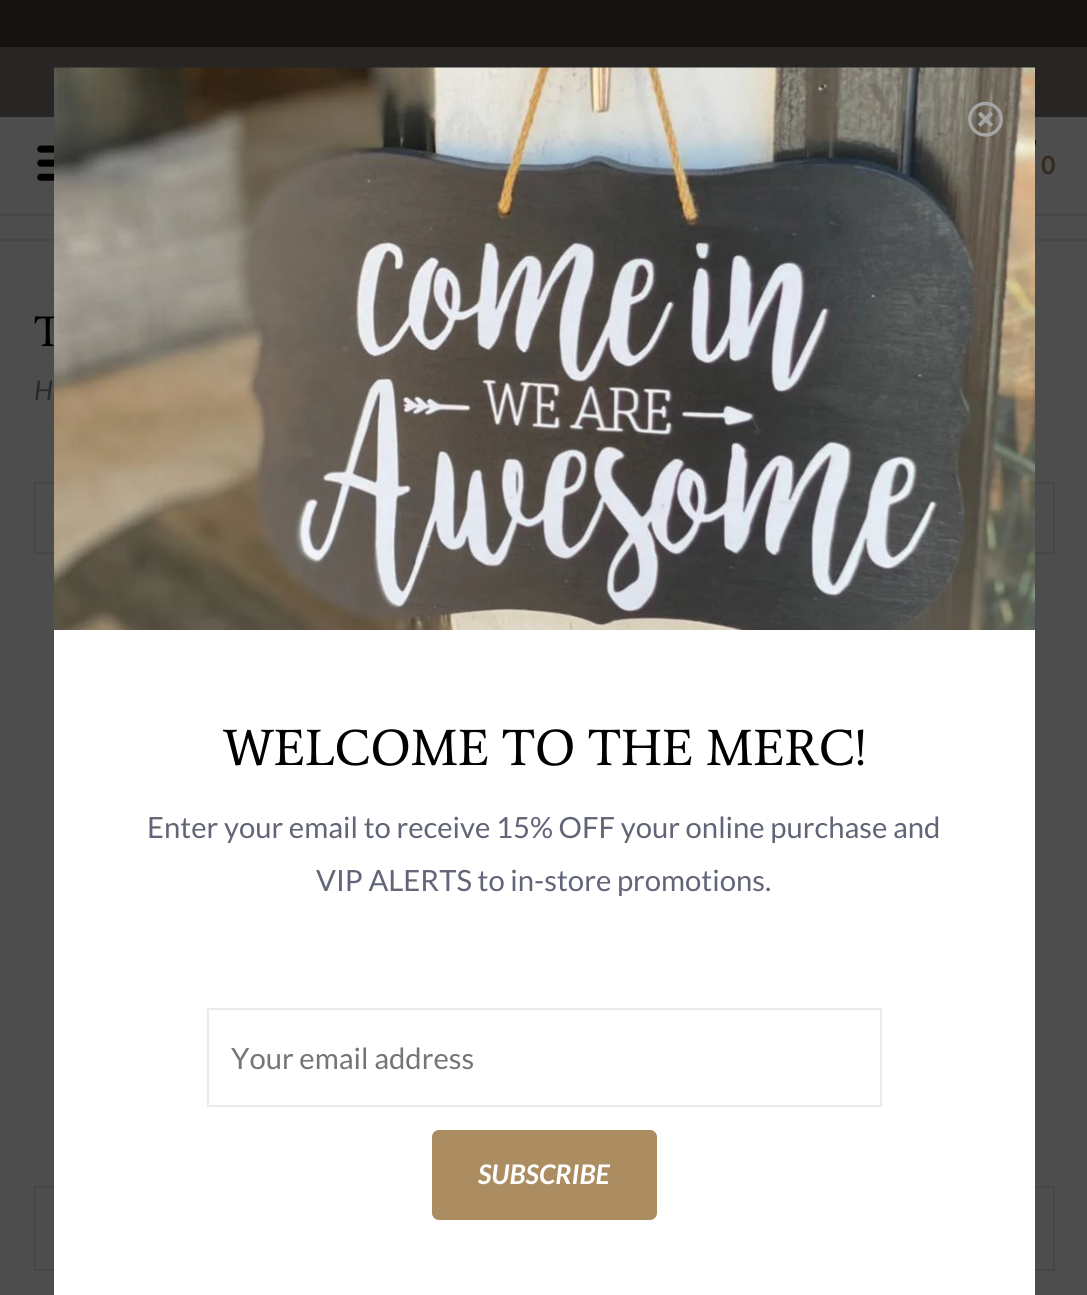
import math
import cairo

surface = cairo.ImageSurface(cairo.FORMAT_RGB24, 1087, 1295)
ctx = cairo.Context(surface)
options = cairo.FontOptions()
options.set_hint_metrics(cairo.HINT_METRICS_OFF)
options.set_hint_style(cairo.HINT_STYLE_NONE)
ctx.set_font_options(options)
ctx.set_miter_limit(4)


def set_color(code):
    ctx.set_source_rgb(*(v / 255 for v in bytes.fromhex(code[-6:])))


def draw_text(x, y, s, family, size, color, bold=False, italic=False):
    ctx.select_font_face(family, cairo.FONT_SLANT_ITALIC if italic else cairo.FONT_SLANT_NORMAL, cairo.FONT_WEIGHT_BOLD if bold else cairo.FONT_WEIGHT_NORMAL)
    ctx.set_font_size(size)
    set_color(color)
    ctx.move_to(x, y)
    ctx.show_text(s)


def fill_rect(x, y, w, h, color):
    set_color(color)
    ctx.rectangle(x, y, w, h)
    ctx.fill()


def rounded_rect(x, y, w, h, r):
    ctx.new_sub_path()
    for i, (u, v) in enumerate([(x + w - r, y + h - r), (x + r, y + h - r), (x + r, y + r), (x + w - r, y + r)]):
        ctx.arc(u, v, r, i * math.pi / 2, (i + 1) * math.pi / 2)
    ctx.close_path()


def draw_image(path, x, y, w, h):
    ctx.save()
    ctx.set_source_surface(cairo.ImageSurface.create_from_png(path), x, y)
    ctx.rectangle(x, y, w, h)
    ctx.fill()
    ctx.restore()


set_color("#4d4d4d")
ctx.paint()
fill_rect(0, 0, 1087, 45, "#151210")
fill_rect(0, 45, 1087, 2, "#13100f")
fill_rect(0, 47, 1087, 70, "#282625")
draw_image("assets/img1.png", 37, 145, 17, 36)
draw_image("assets/img2.png", 1035, 139, 2, 8)
draw_text(1041, 174, "0", "Lato", 25, "#342a1d", bold=True)
fill_rect(0, 214, 1087, 2, "#464646")
fill_rect(0, 239, 1087, 2, "#464646")
draw_text(34, 346, "T", "Average", 43, "#000000")
draw_text(34, 400, "H", "Lato", 27, "#292a2e", italic=True)
ctx.rectangle(35, 483, 475, 70)
set_color("#464646")
ctx.stroke()
ctx.rectangle(579, 483, 475, 70)
ctx.stroke()
ctx.rectangle(35, 1187, 1019, 83)
ctx.stroke()
fill_rect(54, 630, 981, 665, "#ffffff")
draw_image("assets/img3.png", 54, 67, 981, 563)
draw_image("assets/img4.png", 968, 101, 35, 36)
draw_text(223, 765, "WELCOME TO THE MERC!", "Average", 51.25, "#000000")
draw_text(147, 838, "Enter your email to receive 15% OFF your online purchase and", "Lato", 29.25, "#626577")
draw_text(316, 891, "VIP ALERTS to in-store promotions.", "Lato", 29.25, "#626577")
ctx.rectangle(208, 1009, 673, 97)
set_color("#eaeaea")
ctx.stroke()
draw_text(231, 1069, "Your email address", "Lato", 29.25, "#757575")
set_color("#ac8d61")
rounded_rect(432, 1130, 225, 90, 7)
ctx.fill()
draw_text(478, 1184, "SUBSCRIBE", "Lato", 27, "#ffffff", bold=True, italic=True)
surface.write_to_png("output.png")
